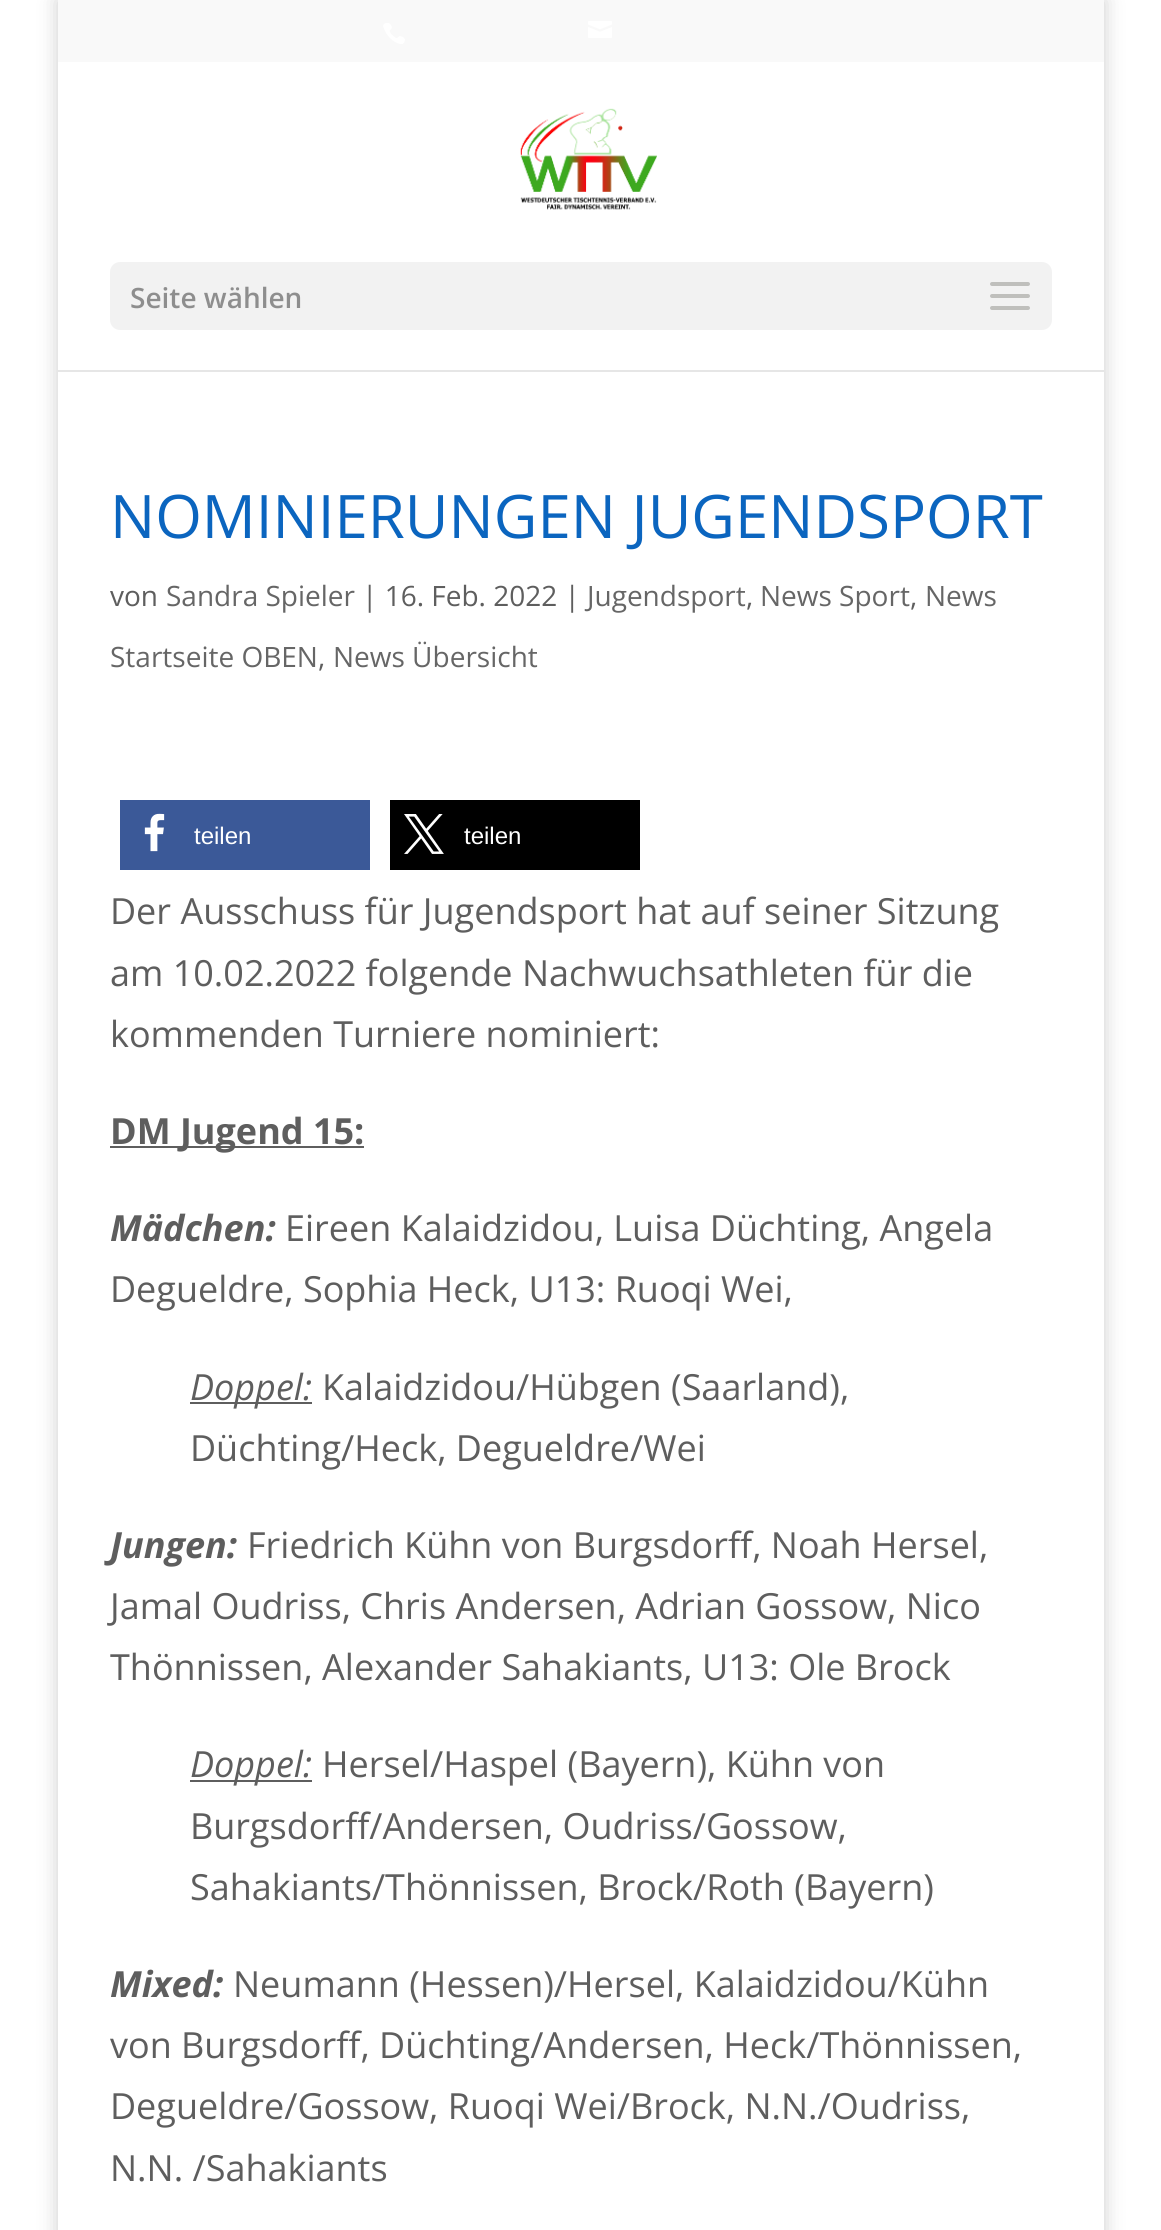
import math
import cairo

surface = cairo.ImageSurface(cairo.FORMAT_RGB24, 1161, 2230)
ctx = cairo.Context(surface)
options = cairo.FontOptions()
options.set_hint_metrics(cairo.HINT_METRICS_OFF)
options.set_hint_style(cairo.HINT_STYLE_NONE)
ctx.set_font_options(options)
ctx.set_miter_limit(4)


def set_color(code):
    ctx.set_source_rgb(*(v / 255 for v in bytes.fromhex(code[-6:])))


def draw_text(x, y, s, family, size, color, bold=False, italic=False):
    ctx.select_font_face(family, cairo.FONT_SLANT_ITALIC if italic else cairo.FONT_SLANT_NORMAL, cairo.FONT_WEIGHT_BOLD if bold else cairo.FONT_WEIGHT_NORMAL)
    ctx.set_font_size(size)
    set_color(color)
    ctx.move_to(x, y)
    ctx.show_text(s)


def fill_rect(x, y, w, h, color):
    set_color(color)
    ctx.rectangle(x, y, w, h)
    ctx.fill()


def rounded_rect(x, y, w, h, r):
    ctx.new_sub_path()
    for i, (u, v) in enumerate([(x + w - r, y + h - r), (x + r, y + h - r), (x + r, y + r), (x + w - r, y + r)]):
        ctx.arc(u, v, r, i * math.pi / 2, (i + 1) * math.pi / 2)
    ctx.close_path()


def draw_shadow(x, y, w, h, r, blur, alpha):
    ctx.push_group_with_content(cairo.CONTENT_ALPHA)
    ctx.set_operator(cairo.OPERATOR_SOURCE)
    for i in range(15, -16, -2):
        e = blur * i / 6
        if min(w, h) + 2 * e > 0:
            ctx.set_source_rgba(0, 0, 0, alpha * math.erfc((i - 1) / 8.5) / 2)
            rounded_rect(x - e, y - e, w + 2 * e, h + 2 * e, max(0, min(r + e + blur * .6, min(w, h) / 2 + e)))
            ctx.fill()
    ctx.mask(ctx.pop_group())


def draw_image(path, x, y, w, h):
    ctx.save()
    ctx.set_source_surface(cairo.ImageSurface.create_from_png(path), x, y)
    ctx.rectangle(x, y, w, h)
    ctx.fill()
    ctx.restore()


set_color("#ffffff")
ctx.paint()
ctx.save()
ctx.set_fill_rule(cairo.FILL_RULE_EVEN_ODD)
ctx.new_path()
ctx.move_to(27, 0)
ctx.line_to(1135, 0)
ctx.line_to(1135, 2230)
ctx.line_to(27, 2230)
ctx.close_path()
ctx.move_to(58, 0)
ctx.line_to(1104, 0)
ctx.line_to(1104, 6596)
ctx.line_to(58, 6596)
ctx.close_path()
ctx.clip()
set_color("#000000")
draw_shadow(58, 0, 1046, 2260, 0, 10, 0.2)
ctx.restore()
fill_rect(58, 0, 1046, 62, "#f9f9f9")
draw_image("assets/img1.png", 383, 23, 22, 21)
draw_image("assets/img2.png", 588, 21, 24, 17)
fill_rect(58, 370, 1046, 2, "#e6e6e6")
draw_image("assets/img3.png", 520, 108, 137, 102)
set_color("#f2f2f2")
rounded_rect(110, 262, 942, 68, 10)
ctx.fill()
draw_text(130, 308, "Seite wählen", "Open Sans SemiBold", 28, "#8e8e8e")
draw_image("assets/img4.png", 990, 282, 40, 28)
draw_text(110, 538, "NOMINIERUNGEN JUGENDSPORT", "Open Sans", 60, "#0b65bf")
draw_text(110, 606, "von", "Open Sans", 28, "#5e5e5e")
draw_text(166, 606, "Sandra Spieler", "Open Sans", 28, "#666666")
draw_text(362, 606, "| 16. Feb. 2022 |", "Open Sans", 28, "#5e5e5e")
draw_text(587, 606, "Jugendsport", "Open Sans", 28, "#666666")
draw_text(746, 606, ",", "Open Sans", 28, "#5e5e5e")
draw_text(760, 606, "News Sport", "Open Sans", 28, "#666666")
draw_text(910, 606, ",", "Open Sans", 28, "#5e5e5e")
draw_text(925, 606, "News", "Open Sans", 28, "#666666")
draw_text(110, 667, "Startseite OBEN", "Open Sans", 28, "#666666")
draw_text(318, 667, ",", "Open Sans", 28, "#5e5e5e")
draw_text(333, 667, "News Übersicht", "Open Sans", 28, "#666666")
fill_rect(120, 800, 250, 70, "#3b5998")
draw_image("assets/img5.png", 144, 813, 21, 39)
draw_text(194, 844, "teilen", "Liberation Sans", 24, "#ffffff")
fill_rect(390, 800, 250, 70, "#000000")
draw_image("assets/img6.png", 404, 814, 40, 40)
draw_text(464, 844, "teilen", "Liberation Sans", 24, "#ffffff")
draw_text(110, 924, "Der Ausschuss für Jugendsport hat auf seiner Sitzung", "Open Sans", 36, "#5e5e5e")
draw_text(110, 986, "am 10.02.2022 folgende Nachwuchsathleten für die", "Open Sans", 36, "#5e5e5e")
draw_text(110, 1047, "kommenden Turniere nominiert:", "Open Sans", 36, "#5e5e5e")
fill_rect(110, 1146, 254, 2, "#5e5e5e")
draw_text(110, 1144, "DM Jugend 15:", "Open Sans", 36, "#5e5e5e", bold=True)
draw_text(110, 1241, "Mädchen:", "Open Sans", 36, "#5e5e5e", bold=True, italic=True)
draw_text(285, 1241, "Eireen Kalaidzidou, Luisa Düchting, Angela", "Open Sans", 36, "#5e5e5e")
draw_text(110, 1302, "Degueldre, Sophia Heck, U13: Ruoqi Wei,", "Open Sans", 36, "#5e5e5e")
fill_rect(190, 1402, 122, 2, "#5e5e5e")
draw_text(190, 1400, "Doppel:", "Open Sans", 36, "#5e5e5e", italic=True)
draw_text(322, 1400, "Kalaidzidou/Hübgen (Saarland),", "Open Sans", 36, "#5e5e5e")
draw_text(190, 1461, "Düchting/Heck, Degueldre/Wei", "Open Sans", 36, "#5e5e5e")
draw_text(110, 1558, "Jungen:", "Open Sans", 36, "#5e5e5e", bold=True, italic=True)
draw_text(247, 1558, "Friedrich Kühn von Burgsdorff, Noah Hersel,", "Open Sans", 36, "#5e5e5e")
draw_text(110, 1619, "Jamal Oudriss, Chris Andersen, Adrian Gossow, Nico", "Open Sans", 36, "#5e5e5e")
draw_text(110, 1680, "Thönnissen, Alexander Sahakiants, U13: Ole Brock", "Open Sans", 36, "#5e5e5e")
fill_rect(190, 1780, 122, 2, "#5e5e5e")
draw_text(190, 1777, "Doppel:", "Open Sans", 36, "#5e5e5e", italic=True)
draw_text(322, 1777, "Hersel/Haspel (Bayern), Kühn von", "Open Sans", 36, "#5e5e5e")
draw_text(190, 1839, "Burgsdorff/Andersen, Oudriss/Gossow,", "Open Sans", 36, "#5e5e5e")
draw_text(190, 1900, "Sahakiants/Thönnissen, Brock/Roth (Bayern)", "Open Sans", 36, "#5e5e5e")
draw_text(110, 1997, "Mixed:", "Open Sans", 36, "#5e5e5e", bold=True, italic=True)
draw_text(233, 1997, "Neumann (Hessen)/Hersel, Kalaidzidou/Kühn", "Open Sans", 36, "#5e5e5e")
draw_text(110, 2058, "von Burgsdorff, Düchting/Andersen, Heck/Thönnissen,", "Open Sans", 36, "#5e5e5e")
draw_text(110, 2119, "Degueldre/Gossow, Ruoqi Wei/Brock, N.N./Oudriss,", "Open Sans", 36, "#5e5e5e")
draw_text(110, 2181, "N.N. /Sahakiants", "Open Sans", 36, "#5e5e5e")
surface.write_to_png("output.png")
